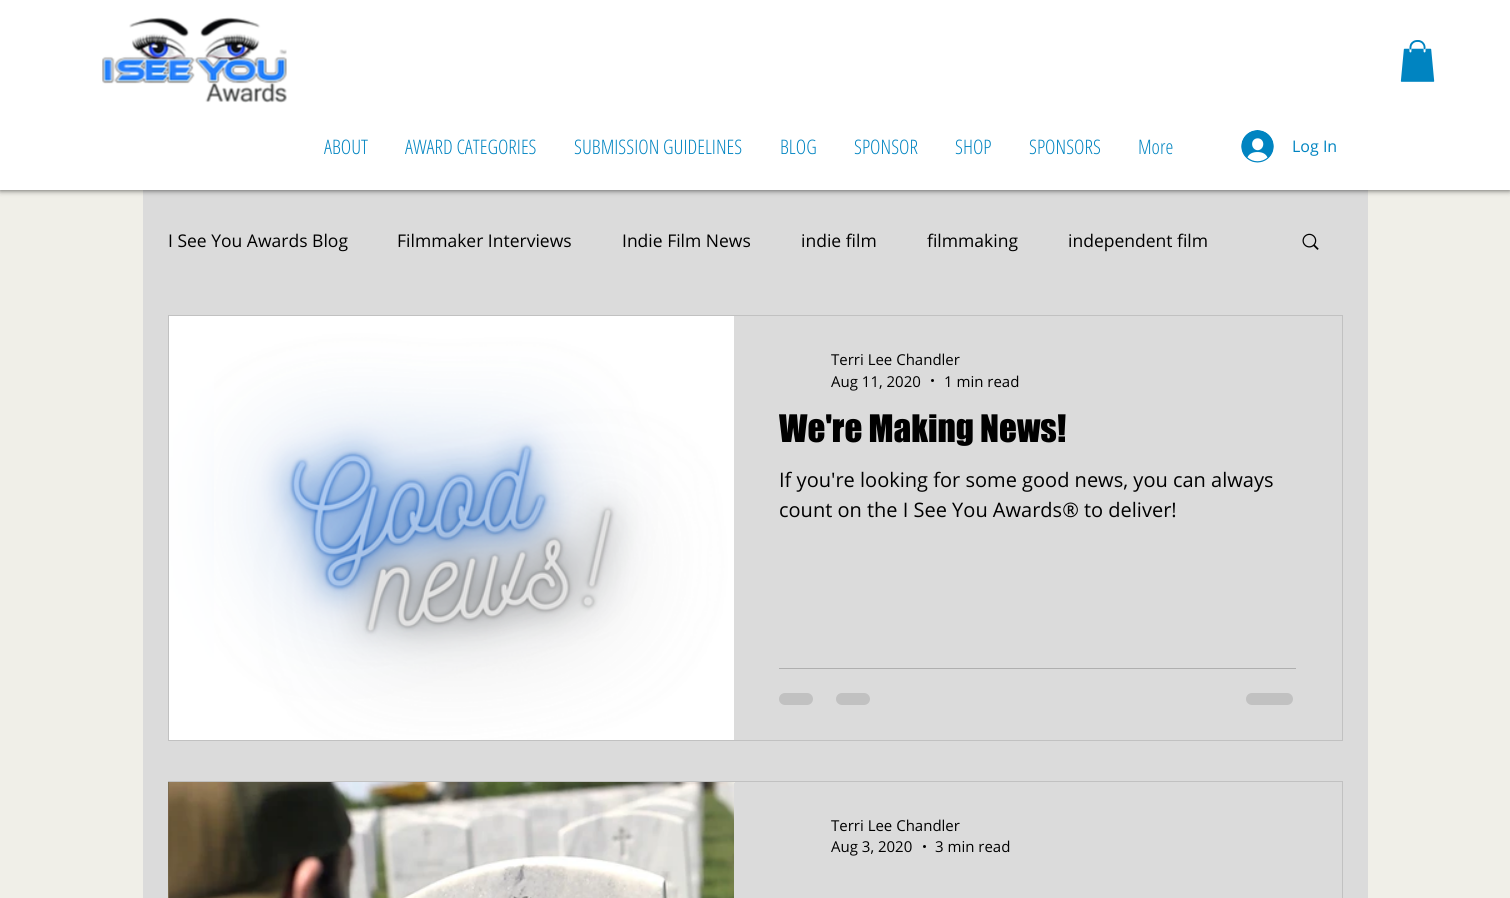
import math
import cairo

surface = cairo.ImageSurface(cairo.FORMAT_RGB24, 1510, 898)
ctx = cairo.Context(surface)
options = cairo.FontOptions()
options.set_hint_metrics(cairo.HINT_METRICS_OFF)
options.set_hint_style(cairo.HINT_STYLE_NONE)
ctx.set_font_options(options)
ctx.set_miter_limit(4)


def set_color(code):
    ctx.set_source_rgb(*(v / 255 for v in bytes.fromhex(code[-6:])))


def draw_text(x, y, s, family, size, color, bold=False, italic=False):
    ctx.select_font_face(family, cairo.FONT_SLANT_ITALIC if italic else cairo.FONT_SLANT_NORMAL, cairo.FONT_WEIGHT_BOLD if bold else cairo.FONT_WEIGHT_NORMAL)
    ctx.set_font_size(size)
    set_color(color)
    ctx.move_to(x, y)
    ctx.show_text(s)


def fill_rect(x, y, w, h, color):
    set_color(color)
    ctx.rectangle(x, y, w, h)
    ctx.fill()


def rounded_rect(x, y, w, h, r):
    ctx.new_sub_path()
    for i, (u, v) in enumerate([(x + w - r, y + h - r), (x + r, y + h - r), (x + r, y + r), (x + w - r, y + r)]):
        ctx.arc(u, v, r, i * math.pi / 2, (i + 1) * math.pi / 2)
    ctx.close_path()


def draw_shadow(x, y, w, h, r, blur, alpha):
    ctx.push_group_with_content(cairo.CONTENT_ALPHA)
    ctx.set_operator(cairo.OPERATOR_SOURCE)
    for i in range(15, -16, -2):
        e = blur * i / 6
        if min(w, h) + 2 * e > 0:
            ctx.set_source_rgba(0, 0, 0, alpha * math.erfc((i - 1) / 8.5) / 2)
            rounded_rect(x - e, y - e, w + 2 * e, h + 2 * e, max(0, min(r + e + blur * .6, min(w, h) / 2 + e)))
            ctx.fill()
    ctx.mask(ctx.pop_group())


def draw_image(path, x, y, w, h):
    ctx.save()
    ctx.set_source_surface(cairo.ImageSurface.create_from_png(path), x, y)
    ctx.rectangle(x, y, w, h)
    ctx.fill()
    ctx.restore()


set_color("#f0efe8")
ctx.paint()
fill_rect(143, 190, 1225, 708, "#dbdbdb")
set_color("#000000")
draw_shadow(0, 0, 1510, 190, 0, 3, 0.7)
fill_rect(0, 0, 1510, 190, "#ffffff")
draw_image("assets/img1.png", 102, 17, 185, 86)
draw_image("assets/img2.png", 1400, 40, 35, 42)
draw_text(324, 154, "ABOUT", "Open Sans Condensed Light", 20, "#0084c1")
draw_text(405, 154, "AWARD CATEGORIES", "Open Sans Condensed Light", 20, "#0084c1")
draw_text(574, 154, "SUBMISSION GUIDELINES", "Open Sans Condensed Light", 20, "#0084c1")
draw_text(780, 154, "BLOG", "Open Sans Condensed Light", 20, "#0084c1")
draw_text(854, 154, "SPONSOR", "Open Sans Condensed Light", 20, "#0084c1")
draw_text(955, 154, "SHOP", "Open Sans Condensed Light", 20, "#0084c1")
draw_text(1029, 154, "SPONSORS", "Open Sans Condensed Light", 20, "#0084c1")
draw_text(1138, 154, "More", "Open Sans Condensed Light", 20, "#0084c1")
draw_image("assets/img3.png", 1241, 130, 33, 33)
draw_text(1292, 152, "Log In", "Open Sans", 16, "#0084c1")
draw_text(168, 247, "I See You Awards Blog", "Open Sans", 17.5, "#000000")
draw_text(397, 247, "Filmmaker Interviews", "Open Sans", 17.5, "#000000")
draw_text(622, 247, "Indie Film News", "Open Sans", 17.5, "#000000")
draw_text(801, 247, "indie film", "Open Sans", 17.5, "#000000")
draw_text(927, 247, "filmmaking", "Open Sans", 17.5, "#000000")
draw_text(1068, 247, "independent film", "Open Sans", 17.5, "#000000")
draw_image("assets/img4.png", 1302, 233, 17, 17)
ctx.rectangle(168.5, 315.5, 1174, 425)
set_color("#c1c1c1")
ctx.set_line_width(1)
ctx.stroke()
draw_image("assets/img5.png", 169, 316, 45, 424)
draw_image("assets/img6.png", 214, 316, 520, 424)
draw_text(831, 365, "Terri Lee Chandler", "Open Sans", 15, "#000000")
draw_text(831, 387, "Aug 11, 2020", "Open Sans", 15, "#000000")
ctx.new_path()
ctx.arc(932.5, 380.5, 1.5, 0, 2 * math.pi)
ctx.fill()
draw_text(944, 387, "1 min read", "Open Sans", 15, "#000000")
draw_text(779, 442, "We're Making News!", "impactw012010", 35, "#000000")
draw_text(779, 487, "If you're looking for some good news, you can always", "Open Sans", 20, "#000000")
draw_text(779, 517, "count on the I See You Awards® to deliver!", "Open Sans", 20, "#000000")
fill_rect(779, 668, 517, 1, "#afafaf")
set_color("#c1c1c1")
rounded_rect(779, 693, 34, 12, 6)
ctx.fill()
rounded_rect(836, 693, 34, 12, 6)
ctx.fill()
rounded_rect(1246, 693, 47, 12, 6)
ctx.fill()
ctx.rectangle(168.5, 781.5, 1174, 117)
ctx.stroke()
draw_image("assets/img7.png", 168, 782, 1, 116)
draw_image("assets/img8.png", 169, 782, 566, 116)
fill_rect(734, 783, 1, 115, "#dbdbdb")
draw_text(831, 831, "Terri Lee Chandler", "Open Sans", 15, "#000000")
draw_text(831, 852, "Aug 3, 2020", "Open Sans", 15, "#000000")
ctx.new_path()
ctx.arc(924.5, 846.5, 1.5, 0, 2 * math.pi)
ctx.fill()
draw_text(935, 852, "3 min read", "Open Sans", 15, "#000000")
surface.write_to_png("output.png")
